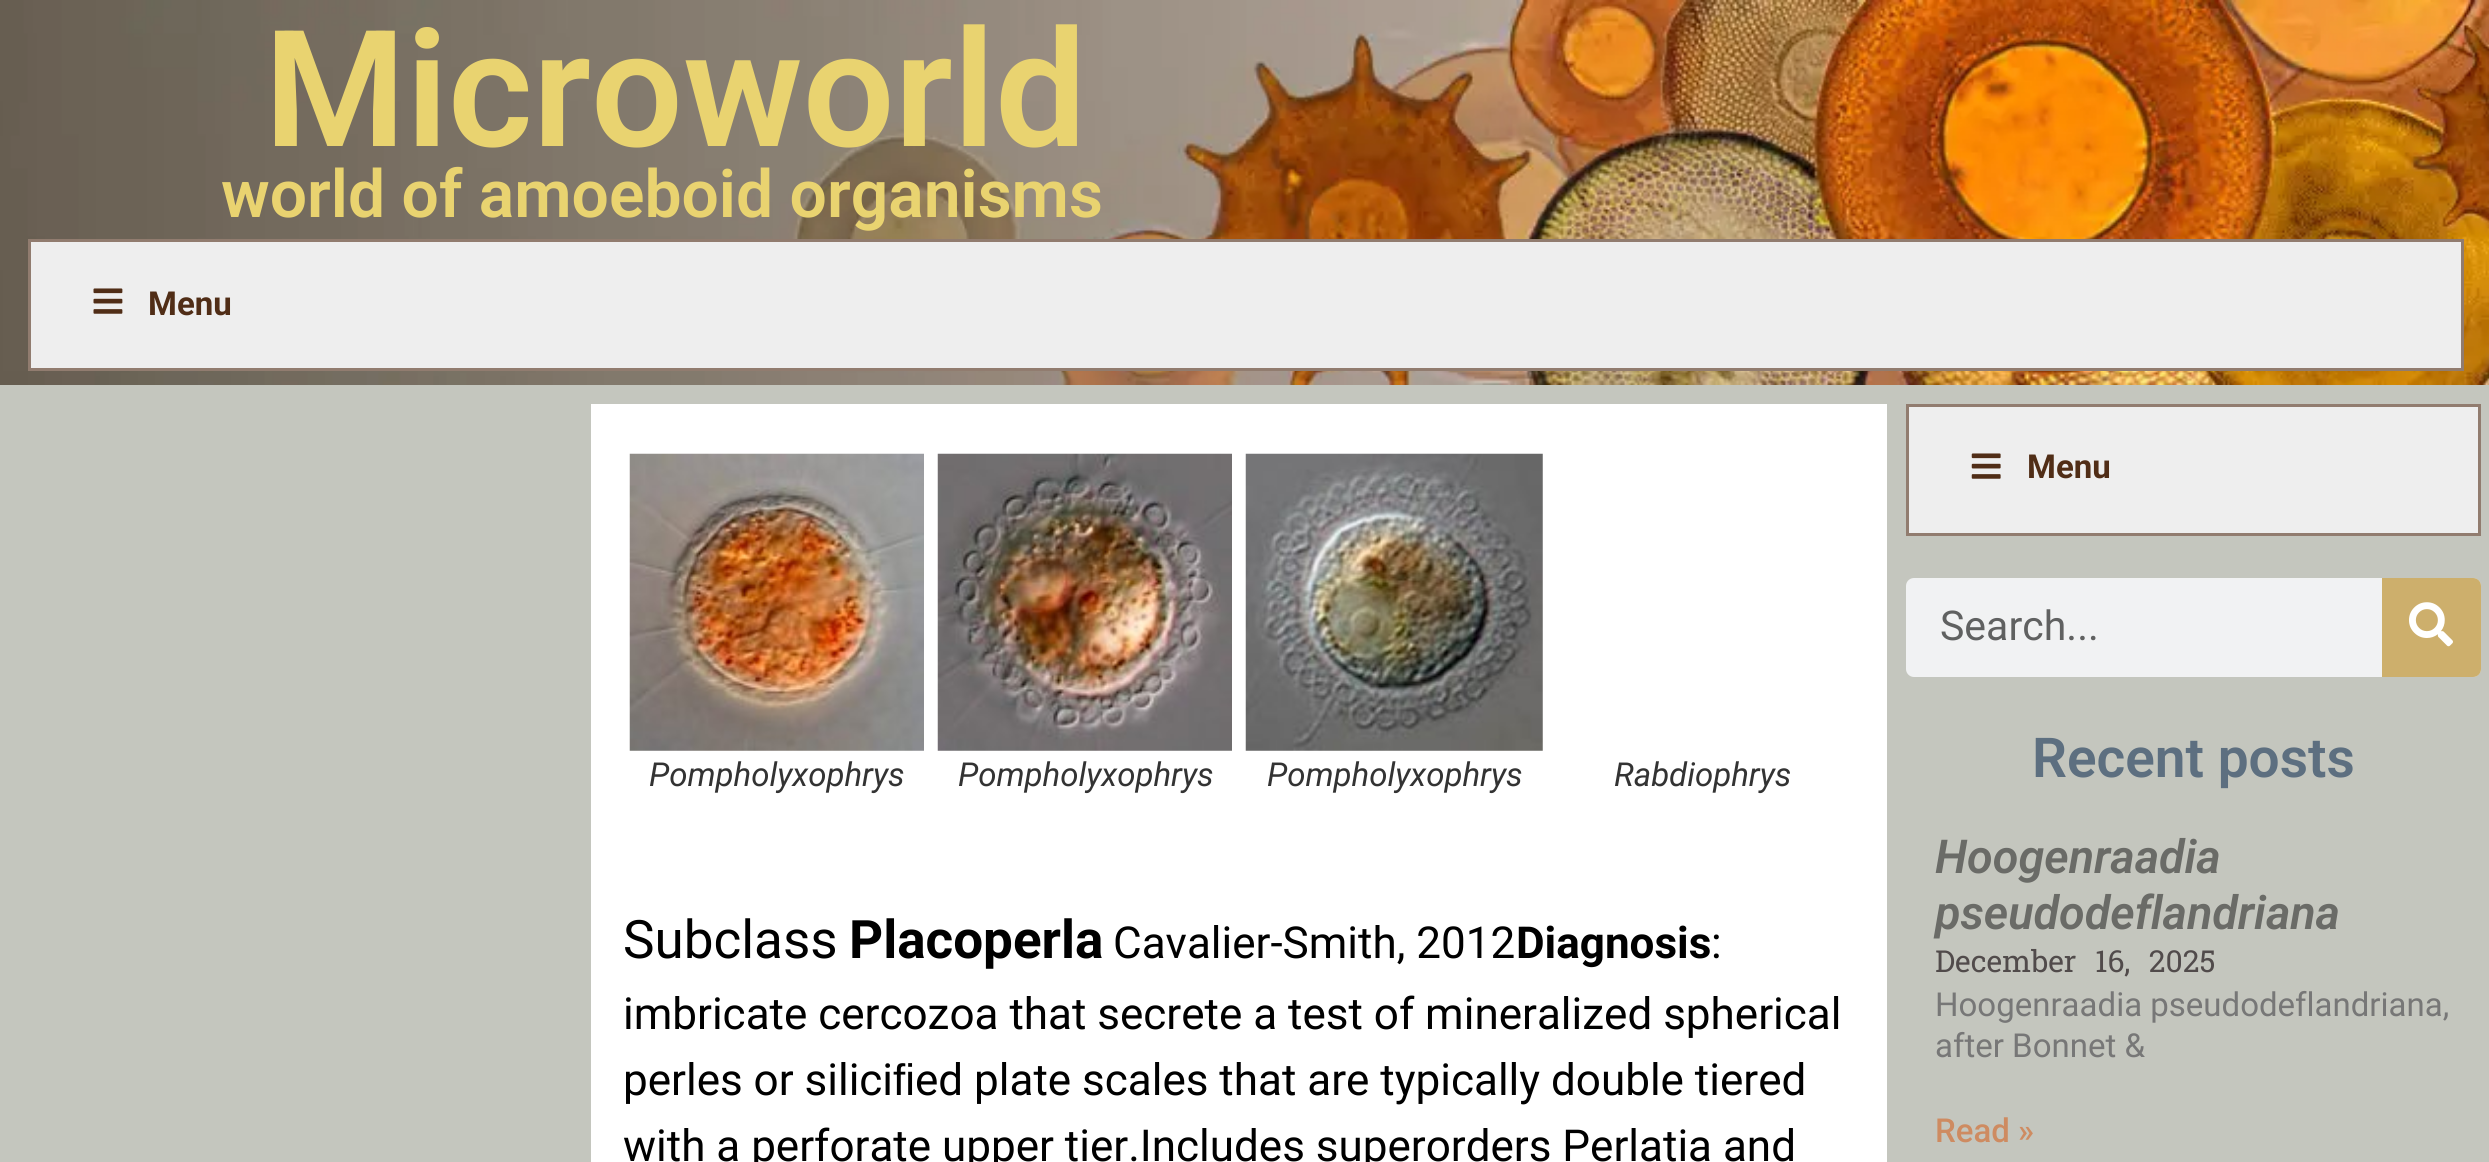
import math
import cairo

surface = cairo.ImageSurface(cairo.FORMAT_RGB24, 2489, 1162)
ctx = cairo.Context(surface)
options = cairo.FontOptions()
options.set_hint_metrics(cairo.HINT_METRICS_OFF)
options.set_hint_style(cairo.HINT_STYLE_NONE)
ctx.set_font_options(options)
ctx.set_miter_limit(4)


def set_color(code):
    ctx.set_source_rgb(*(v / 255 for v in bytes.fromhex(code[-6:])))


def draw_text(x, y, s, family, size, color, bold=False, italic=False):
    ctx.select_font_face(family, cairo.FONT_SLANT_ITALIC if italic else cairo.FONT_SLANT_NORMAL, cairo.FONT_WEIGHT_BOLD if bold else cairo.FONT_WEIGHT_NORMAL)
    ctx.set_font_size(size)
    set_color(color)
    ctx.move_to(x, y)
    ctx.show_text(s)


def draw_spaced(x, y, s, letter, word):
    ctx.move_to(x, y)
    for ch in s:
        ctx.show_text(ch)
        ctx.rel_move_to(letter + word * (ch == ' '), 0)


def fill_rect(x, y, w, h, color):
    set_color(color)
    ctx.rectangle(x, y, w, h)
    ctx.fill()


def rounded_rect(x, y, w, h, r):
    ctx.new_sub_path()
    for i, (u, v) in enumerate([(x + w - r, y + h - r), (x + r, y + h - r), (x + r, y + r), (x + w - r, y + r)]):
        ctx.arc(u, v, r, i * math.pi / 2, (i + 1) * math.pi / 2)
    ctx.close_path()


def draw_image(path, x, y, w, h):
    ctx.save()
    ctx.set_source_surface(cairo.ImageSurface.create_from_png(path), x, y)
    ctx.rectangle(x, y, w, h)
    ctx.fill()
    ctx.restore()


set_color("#c4c6be")
ctx.paint()
draw_image("assets/img1.png", 0, 0, 2489, 385)
draw_text(264, 146, "Microworld", "Roboto SemiBold", 162.25, "#e9d370")
draw_text(221, 217, "world of amoeboid organisms", "Roboto SemiBold", 66, "#e9d370")
set_color("#eeeeee")
ctx.rectangle(29.5, 240.5, 2433, 129)
ctx.fill_preserve()
set_color("#917c6f")
ctx.set_line_width(3)
ctx.stroke()
draw_image("assets/img2.png", 93, 288, 30, 26)
draw_text(148, 315, "Menu", "Roboto", 33, "#502d16", bold=True)
fill_rect(591, 404, 1296, 758, "#ffffff")
draw_image("assets/img3.png", 629, 453, 295, 298)
draw_text(649, 786, "Pompholyxophrys", "Roboto", 33, "#333333", italic=True)
draw_image("assets/img4.png", 937, 453, 295, 298)
draw_text(958, 786, "Pompholyxophrys", "Roboto", 33, "#333333", italic=True)
draw_image("assets/img5.png", 1245, 453, 298, 298)
draw_text(1267, 786, "Pompholyxophrys", "Roboto", 33, "#333333", italic=True)
draw_text(1614, 786, "Rabdiophrys", "Roboto", 33, "#333333", italic=True)
draw_text(623, 958, "Subclass", "Roboto", 53, "#000000")
draw_text(849, 958, "Placoperla", "Roboto", 53, "#000000", bold=True)
draw_text(1113, 958, "Cavalier-Smith, 2012", "Roboto", 44, "#000000")
draw_text(1516, 958, "Diagnosis", "Roboto", 44, "#000000", bold=True)
draw_text(1711, 958, ":", "Roboto", 44, "#000000")
draw_text(623, 1029, "imbricate cercozoa that secrete a test of mineralized spherical", "Roboto", 44, "#000000")
draw_text(623, 1095, "perles or silici", "Roboto", 44, "#000000")
draw_text(893, 1095, "ﬁ", "Liberation Sans", 44, "#000000")
draw_text(915, 1095, "ed plate scales that are typically double tiered", "Roboto", 44, "#000000")
draw_text(623, 1161, "with a perforate upper tier.Includes superorders Perlatia and", "Roboto", 44, "#000000")
set_color("#eeeeee")
ctx.rectangle(1907.5, 405.5, 572, 129)
ctx.fill_preserve()
set_color("#917c6f")
ctx.stroke()
draw_image("assets/img6.png", 1971, 453, 30, 26)
draw_text(2027, 478, "Menu", "Roboto", 33, "#502d16", bold=True)
set_color("#f1f2f3")
rounded_rect(1906, 578, 575, 99, 8)
ctx.fill()
draw_text(1940, 640, "Search...", "Roboto", 41, "#606161")
ctx.set_source_rgba(0.761, 0.612, 0.271, 0.77)
ctx.new_path()
ctx.move_to(2382, 578)
ctx.line_to(2473, 578)
ctx.curve_to(2477.5, 578, 2481, 581.5, 2481, 586)
ctx.line_to(2481, 669)
ctx.curve_to(2481, 673.5, 2477.5, 677, 2473, 677)
ctx.line_to(2382, 677)
ctx.close_path()
ctx.fill()
draw_image("assets/img7.png", 2409, 602, 44, 45)
draw_text(2032, 777, "Recent posts", "Roboto SemiBold", 55, "#5d6f80")
draw_text(1935, 873, "Hoogenraadia", "Roboto SemiBold", 46.75, "#6a6b67", italic=True)
draw_text(1935, 929, "pseudodeflandriana", "Roboto SemiBold", 46.75, "#6a6b67", italic=True)
ctx.select_font_face("Roboto Slab")
ctx.set_font_size(30.25)
set_color("#514b4b")
draw_spaced(1935, 972, "December 16, 2025", 0, 11)
draw_text(1935, 1016, "Hoogenraadia pseudodeflandriana,", "Roboto", 33, "#777777")
draw_text(1935, 1057, "after Bonnet &", "Roboto", 33, "#777777")
draw_text(1935, 1142, "Read »", "Roboto Medium", 33, "#ce8b61")
surface.write_to_png("output.png")
